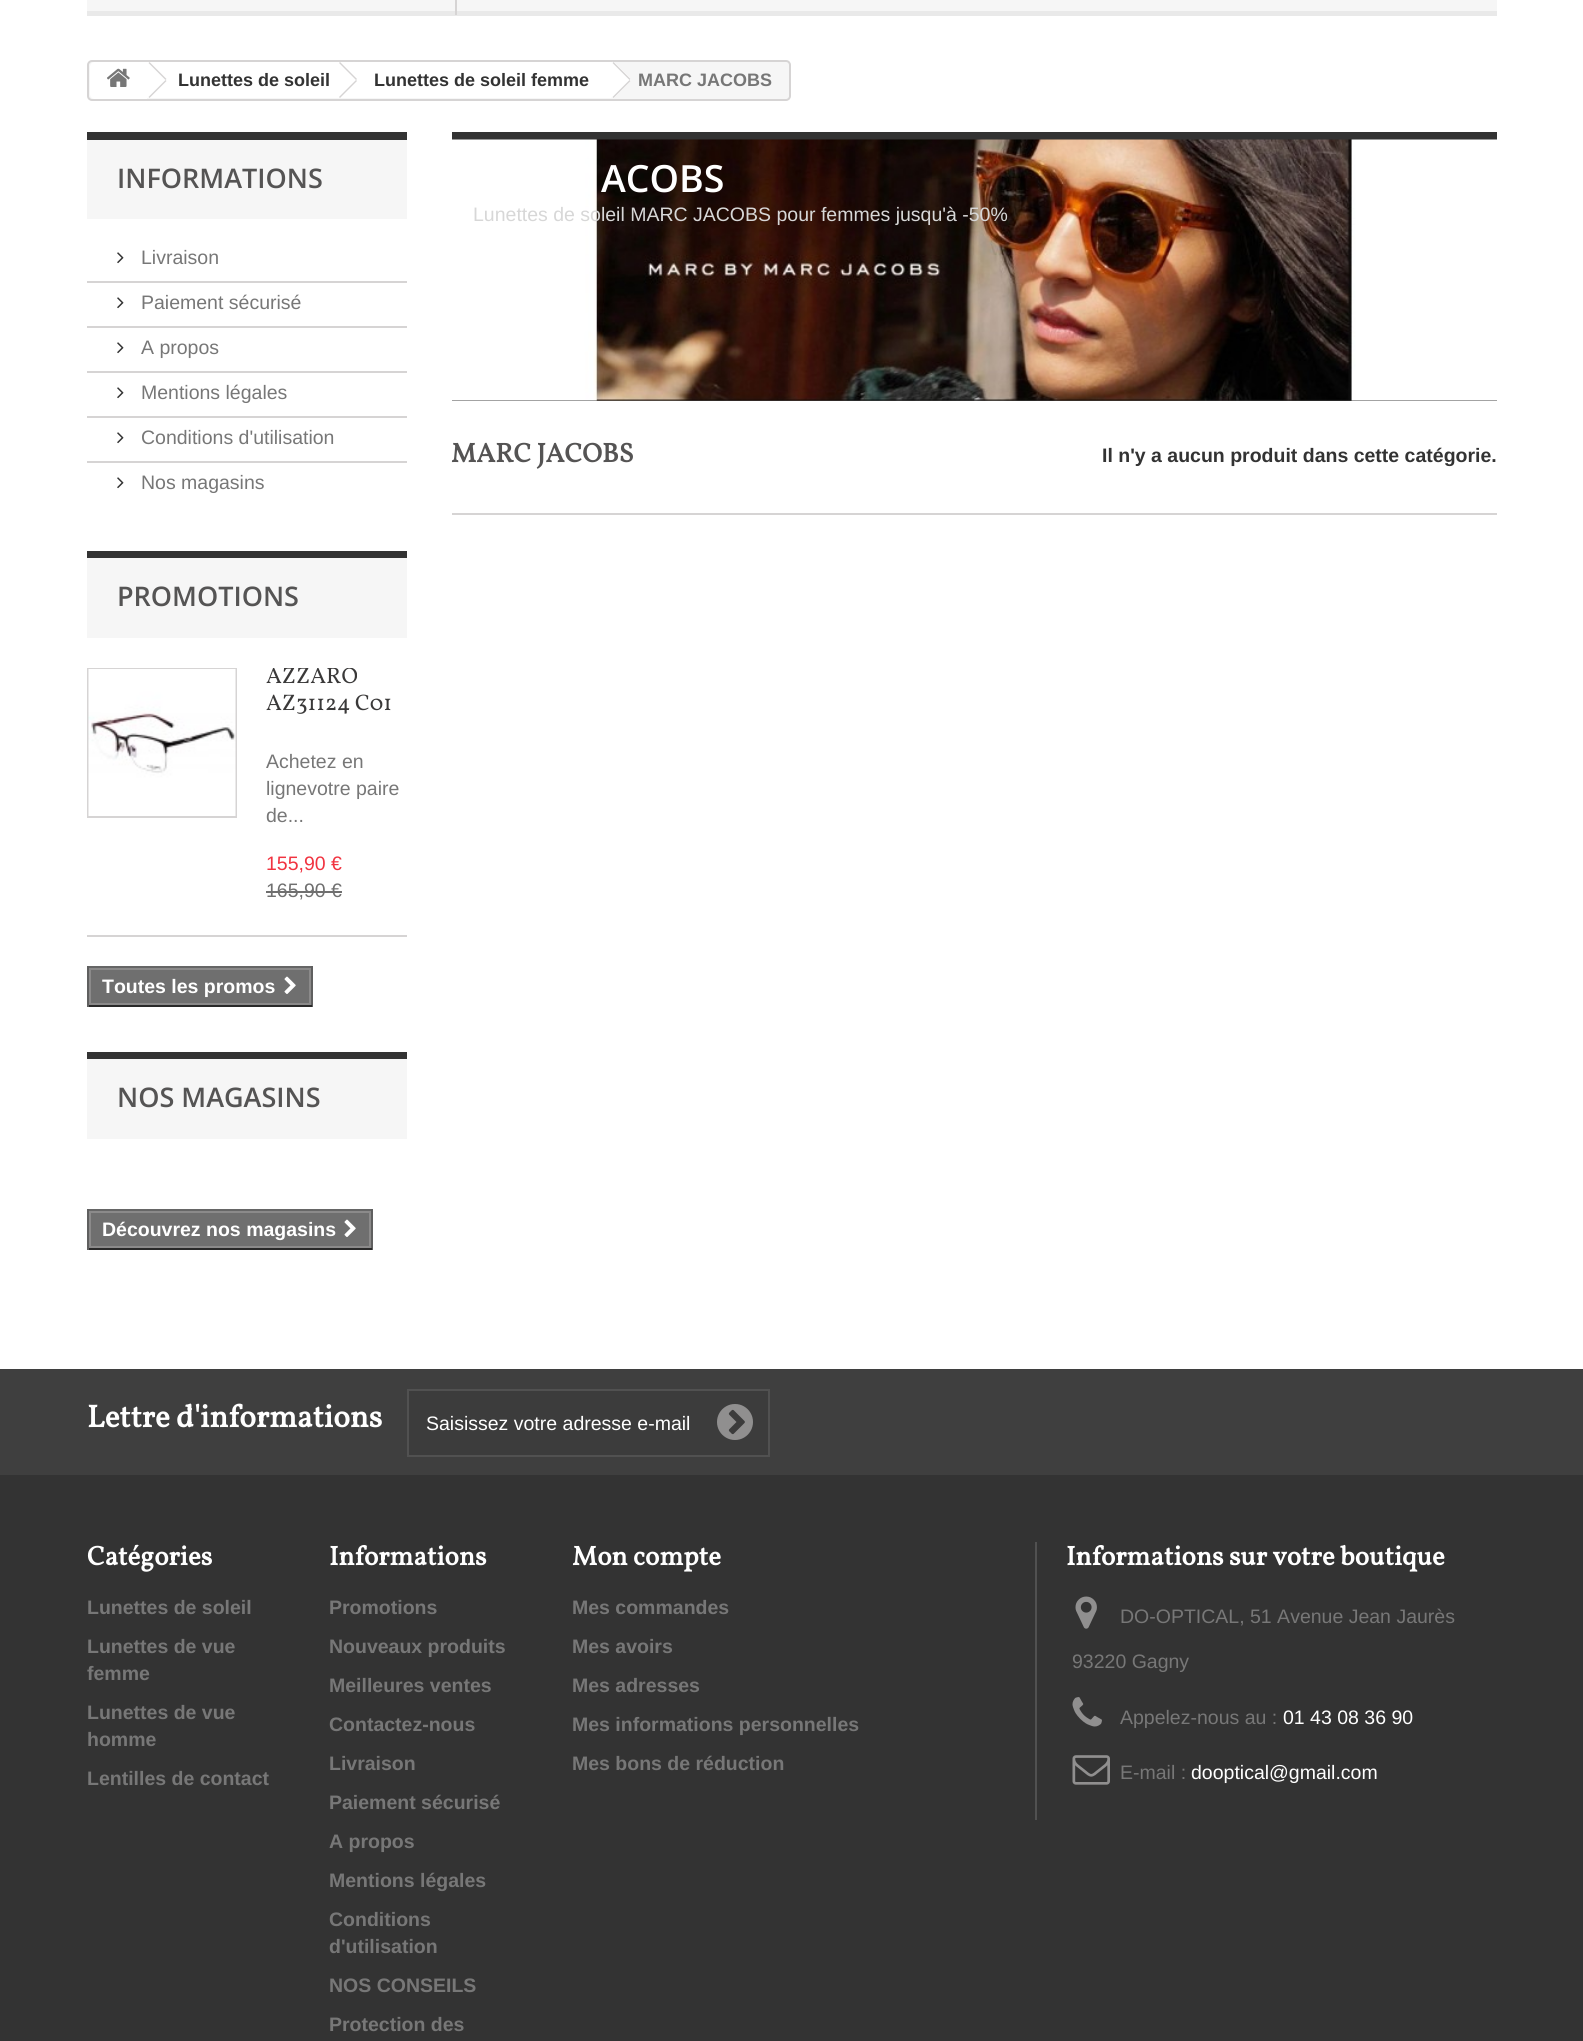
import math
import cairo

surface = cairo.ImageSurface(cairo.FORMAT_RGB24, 1583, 2041)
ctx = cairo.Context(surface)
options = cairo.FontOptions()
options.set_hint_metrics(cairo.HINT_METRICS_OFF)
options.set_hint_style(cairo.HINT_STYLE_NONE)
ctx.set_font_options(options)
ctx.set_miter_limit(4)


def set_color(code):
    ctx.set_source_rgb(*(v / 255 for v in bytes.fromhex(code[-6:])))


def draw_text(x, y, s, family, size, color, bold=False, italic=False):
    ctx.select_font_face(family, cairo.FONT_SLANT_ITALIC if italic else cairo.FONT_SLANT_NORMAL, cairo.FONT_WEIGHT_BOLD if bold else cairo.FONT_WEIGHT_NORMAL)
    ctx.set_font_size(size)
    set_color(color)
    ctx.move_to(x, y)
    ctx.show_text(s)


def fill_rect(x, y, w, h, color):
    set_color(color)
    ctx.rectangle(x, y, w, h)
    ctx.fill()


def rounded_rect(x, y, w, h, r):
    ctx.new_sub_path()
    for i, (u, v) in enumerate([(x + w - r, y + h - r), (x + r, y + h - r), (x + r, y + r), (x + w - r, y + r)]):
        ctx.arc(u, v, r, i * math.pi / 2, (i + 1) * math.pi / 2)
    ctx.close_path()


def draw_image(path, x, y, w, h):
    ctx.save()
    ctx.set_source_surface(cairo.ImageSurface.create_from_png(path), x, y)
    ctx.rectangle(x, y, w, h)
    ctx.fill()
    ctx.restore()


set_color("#ffffff")
ctx.paint()
fill_rect(87, 0, 1410, 11, "#f6f6f6")
fill_rect(87, 11, 1410, 5, "#e9e9e9")
fill_rect(455, 0, 2, 15, "#d6d4d4")
set_color("#f6f6f6")
rounded_rect(88, 61, 702, 39, 4)
ctx.fill_preserve()
set_color("#d6d4d4")
ctx.stroke()
set_color("#ffffff")
ctx.new_path()
ctx.move_to(95, 62)
ctx.line_to(147, 62)
ctx.line_to(147, 99)
ctx.line_to(95, 99)
ctx.curve_to(92, 99, 90, 97, 90, 94)
ctx.line_to(90, 67)
ctx.curve_to(90, 64, 92, 62, 95, 62)
ctx.close_path()
ctx.fill()
draw_image("assets/img1.png", 107, 68, 23, 19)
fill_rect(147, 62, 194, 36, "#ffffff")
set_color("#d6d4d4")
ctx.new_path()
ctx.move_to(149.5, 62)
ctx.line_to(166.5, 79)
ctx.line_to(165.5, 80)
ctx.line_to(148.5, 63)
ctx.close_path()
ctx.move_to(165.5, 80)
ctx.line_to(166.5, 81)
ctx.line_to(149.5, 98)
ctx.line_to(148.5, 97)
ctx.close_path()
ctx.fill()
draw_text(178, 86, "Lunettes de soleil", "Liberation Sans", 18, "#333333", bold=True)
set_color("#ffffff")
ctx.new_path()
ctx.move_to(356, 63)
ctx.line_to(371, 77.5)
ctx.curve_to(372, 79, 372, 81, 371, 82)
ctx.line_to(356, 97)
ctx.curve_to(355, 98, 353, 98, 352, 97)
ctx.line_to(337, 82)
ctx.curve_to(336, 81, 336, 79, 337, 77.5)
ctx.line_to(352, 63)
ctx.curve_to(353, 61.5, 355, 61.5, 356, 63)
ctx.close_path()
ctx.fill()
fill_rect(341, 62, 270, 36, "#ffffff")
set_color("#d6d4d4")
ctx.new_path()
ctx.move_to(340, 62)
ctx.line_to(357, 79)
ctx.line_to(356, 80)
ctx.line_to(339, 63)
ctx.close_path()
ctx.move_to(356, 80)
ctx.line_to(357, 81)
ctx.line_to(340, 98)
ctx.line_to(339, 97)
ctx.close_path()
ctx.fill()
draw_text(374, 86, "Lunettes de soleil femme", "Liberation Sans", 18, "#333333", bold=True)
set_color("#ffffff")
ctx.new_path()
ctx.move_to(615, 63)
ctx.line_to(629.5, 77.5)
ctx.curve_to(631, 79, 631, 81, 629.5, 82)
ctx.line_to(615, 97)
ctx.curve_to(613.5, 98, 611.5, 98, 610.5, 97)
ctx.line_to(595.5, 82)
ctx.curve_to(594.5, 81, 594.5, 79, 595.5, 77.5)
ctx.line_to(610.5, 63)
ctx.curve_to(611.5, 61.5, 613.5, 61.5, 615, 63)
ctx.close_path()
ctx.fill()
set_color("#d6d4d4")
ctx.new_path()
ctx.move_to(613.5, 62)
ctx.line_to(630.5, 79)
ctx.line_to(629.5, 80)
ctx.line_to(612.5, 63)
ctx.close_path()
ctx.move_to(629.5, 80)
ctx.line_to(630.5, 81)
ctx.line_to(613.5, 98)
ctx.line_to(612.5, 97)
ctx.close_path()
ctx.fill()
draw_text(638, 86, "MARC JACOBS", "Liberation Sans", 18, "#777777", bold=True)
fill_rect(87, 140, 320, 79, "#f6f6f6")
fill_rect(87, 132, 320, 8, "#333333")
draw_text(117, 188, "INFORMATIONS", "Open Sans SemiBold", 27, "#555454")
draw_image("assets/img2.png", 117, 252, 7, 12)
draw_text(141, 264, "Livraison", "Liberation Sans", 19.5, "#777777")
fill_rect(87, 281, 320, 2, "#d6d4d4")
draw_image("assets/img2.png", 117, 297, 7, 12)
draw_text(141, 309, "Paiement sécurisé", "Liberation Sans", 19.5, "#777777")
fill_rect(87, 326, 320, 2, "#d6d4d4")
draw_image("assets/img2.png", 117, 342, 7, 12)
draw_text(141, 354, "A propos", "Liberation Sans", 19.5, "#777777")
fill_rect(87, 371, 320, 2, "#d6d4d4")
draw_image("assets/img2.png", 117, 387, 7, 12)
draw_text(141, 399, "Mentions légales", "Liberation Sans", 19.5, "#777777")
fill_rect(87, 416, 320, 2, "#d6d4d4")
draw_image("assets/img2.png", 117, 432, 7, 12)
draw_text(141, 444, "Conditions d'utilisation", "Liberation Sans", 19.5, "#777777")
fill_rect(87, 461, 320, 2, "#d6d4d4")
draw_image("assets/img2.png", 117, 477, 7, 12)
draw_text(141, 489, "Nos magasins", "Liberation Sans", 19.5, "#777777")
fill_rect(87, 558, 320, 80, "#f6f6f6")
fill_rect(87, 551, 320, 7, "#333333")
draw_text(117, 606, "PROMOTIONS", "Open Sans SemiBold", 27, "#555454")
fill_rect(87, 935, 320, 2, "#d6d4d4")
ctx.rectangle(88, 669, 148, 148)
ctx.stroke()
draw_image("assets/img3.png", 88, 669, 148, 147)
ctx.save()
ctx.rectangle(266, 668, 141, 237)
ctx.clip()
draw_text(266, 683, "AZZARO", "Vollkorn", 22.5, "#3a3939")
ctx.restore()
draw_text(266, 710, "AZ31124 C01", "Vollkorn", 22.5, "#3a3939")
draw_text(266, 768, "Achetez en", "Liberation Sans", 19.5, "#777777")
draw_text(266, 795, "lignevotre paire", "Liberation Sans", 19.5, "#777777")
draw_text(266, 822, "de...", "Liberation Sans", 19.5, "#777777")
draw_text(266, 870, "155,90 €", "Liberation Sans", 19.5, "#f13340")
draw_text(266, 897, "165,90 €", "Liberation Sans", 19.5, "#6f6f6f")
fill_rect(266, 891, 76, 2, "#6f6f6f")
fill_rect(87, 966, 225, 2, "#666666")
fill_rect(311, 966, 2, 41, "#5f5f5f")
fill_rect(87, 1005, 225, 2, "#292929")
fill_rect(87, 966, 2, 41, "#5f5f5f")
set_color("#6f6f6f")
ctx.rectangle(90, 969, 220, 35)
ctx.fill_preserve()
set_color("#8b8a8a")
ctx.stroke()
draw_text(102, 993, "Toutes les promos", "Liberation Sans", 19.5, "#ffffff", bold=True)
draw_image("assets/img4.png", 284, 976, 12, 18)
fill_rect(87, 1059, 320, 80, "#f6f6f6")
fill_rect(87, 1052, 320, 7, "#333333")
draw_text(117, 1107, "NOS MAGASINS", "Open Sans SemiBold", 27, "#555454")
fill_rect(87, 1209, 285, 2, "#666666")
fill_rect(371, 1209, 2, 41, "#5f5f5f")
fill_rect(87, 1248, 285, 2, "#292929")
fill_rect(87, 1209, 2, 41, "#5f5f5f")
set_color("#6f6f6f")
ctx.rectangle(90, 1212, 280, 35)
ctx.fill_preserve()
set_color("#8b8a8a")
ctx.stroke()
draw_text(102, 1236, "Découvrez nos magasins", "Liberation Sans", 19.5, "#ffffff", bold=True)
draw_image("assets/img4.png", 344, 1219, 12, 18)
fill_rect(452, 132, 1045, 8, "#333333")
fill_rect(452, 400, 1045, 1, "#464646")
draw_image("assets/img5.png", 452, 139, 1045, 262)
draw_text(601, 192, "ACOBS", "Open Sans SemiBold", 37.5, "#ffffff")
draw_text(473, 221, "Lunettes de soleil MARC JACOBS pour femmes jusqu'à -50%", "Liberation Sans", 19.5, "#d7d7d7")
fill_rect(452, 513, 1045, 2, "#d6d4d4")
draw_text(451, 462, "MARC JACOBS", "Vollkorn", 27, "#555454", bold=True)
draw_text(1102, 462, "Il n'y a aucun produit dans cette catégorie.", "Liberation Sans", 19.5, "#333333", bold=True)
fill_rect(0, 1475, 1583, 566, "#333333")
fill_rect(0, 1369, 1583, 106, "#3f3f3f")
draw_text(87, 1427, "Lettre d'informations", "Vollkorn", 31.5, "#ffffff", bold=True)
set_color("#3c3c3c")
ctx.rectangle(408, 1390, 361, 66)
ctx.fill_preserve()
set_color("#515151")
ctx.stroke()
draw_text(426, 1430, "Saisissez votre adresse e-mail", "Liberation Sans", 19.5, "#ffffff")
draw_image("assets/img6.png", 717, 1404, 36, 36)
draw_text(87, 1565, "Catégories", "Vollkorn", 27, "#ffffff", bold=True)
draw_text(87, 1614, "Lunettes de soleil", "Liberation Sans", 19.5, "#777777", bold=True)
draw_text(87, 1653, "Lunettes de vue", "Liberation Sans", 19.5, "#777777", bold=True)
draw_text(87, 1680, "femme", "Liberation Sans", 19.5, "#777777", bold=True)
draw_text(87, 1719, "Lunettes de vue", "Liberation Sans", 19.5, "#777777", bold=True)
draw_text(87, 1746, "homme", "Liberation Sans", 19.5, "#777777", bold=True)
draw_text(87, 1785, "Lentilles de contact", "Liberation Sans", 19.5, "#777777", bold=True)
draw_text(329, 1565, "Informations", "Vollkorn", 27, "#ffffff", bold=True)
draw_text(329, 1614, "Promotions", "Liberation Sans", 19.5, "#777777", bold=True)
draw_text(329, 1653, "Nouveaux produits", "Liberation Sans", 19.5, "#777777", bold=True)
draw_text(329, 1692, "Meilleures ventes", "Liberation Sans", 19.5, "#777777", bold=True)
draw_text(329, 1731, "Contactez-nous", "Liberation Sans", 19.5, "#777777", bold=True)
draw_text(329, 1770, "Livraison", "Liberation Sans", 19.5, "#777777", bold=True)
draw_text(329, 1809, "Paiement sécurisé", "Liberation Sans", 19.5, "#777777", bold=True)
draw_text(329, 1848, "A propos", "Liberation Sans", 19.5, "#777777", bold=True)
draw_text(329, 1887, "Mentions légales", "Liberation Sans", 19.5, "#777777", bold=True)
draw_text(329, 1926, "Conditions", "Liberation Sans", 19.5, "#777777", bold=True)
draw_text(329, 1953, "d'utilisation", "Liberation Sans", 19.5, "#777777", bold=True)
draw_text(329, 1992, "NOS CONSEILS", "Liberation Sans", 19.5, "#777777", bold=True)
draw_text(329, 2031, "Protection des", "Liberation Sans", 19.5, "#777777", bold=True)
draw_text(572, 1565, "Mon compte", "Vollkorn", 27, "#ffffff", bold=True)
draw_text(572, 1614, "Mes commandes", "Liberation Sans", 19.5, "#777777", bold=True)
draw_text(572, 1653, "Mes avoirs", "Liberation Sans", 19.5, "#777777", bold=True)
draw_text(572, 1692, "Mes adresses", "Liberation Sans", 19.5, "#777777", bold=True)
draw_text(572, 1731, "Mes informations personnelles", "Liberation Sans", 19.5, "#777777", bold=True)
draw_text(572, 1770, "Mes bons de réduction", "Liberation Sans", 19.5, "#777777", bold=True)
fill_rect(1035, 1542, 2, 278, "#515151")
draw_text(1066, 1565, "Informations sur votre boutique", "Vollkorn", 27, "#ffffff", bold=True)
draw_image("assets/img7.png", 1075, 1596, 22, 33)
draw_text(1120, 1623, "DO-OPTICAL, 51 Avenue Jean Jaurès", "Liberation Sans", 19.5, "#777777")
draw_text(1072, 1668, "93220 Gagny", "Liberation Sans", 19.5, "#777777")
draw_image("assets/img8.png", 1072, 1697, 30, 30)
draw_text(1120, 1724, "Appelez-nous au :", "Liberation Sans", 19.5, "#777777")
draw_text(1283, 1724, "01 43 08 36 90", "Liberation Sans", 19.5, "#ffffff")
draw_image("assets/img9.png", 1072, 1755, 38, 30)
draw_text(1120, 1779, "E-mail :", "Liberation Sans", 19.5, "#777777")
draw_text(1191, 1779, "dooptical@gmail.com", "Liberation Sans", 19.5, "#ffffff")
surface.write_to_png("output.png")
